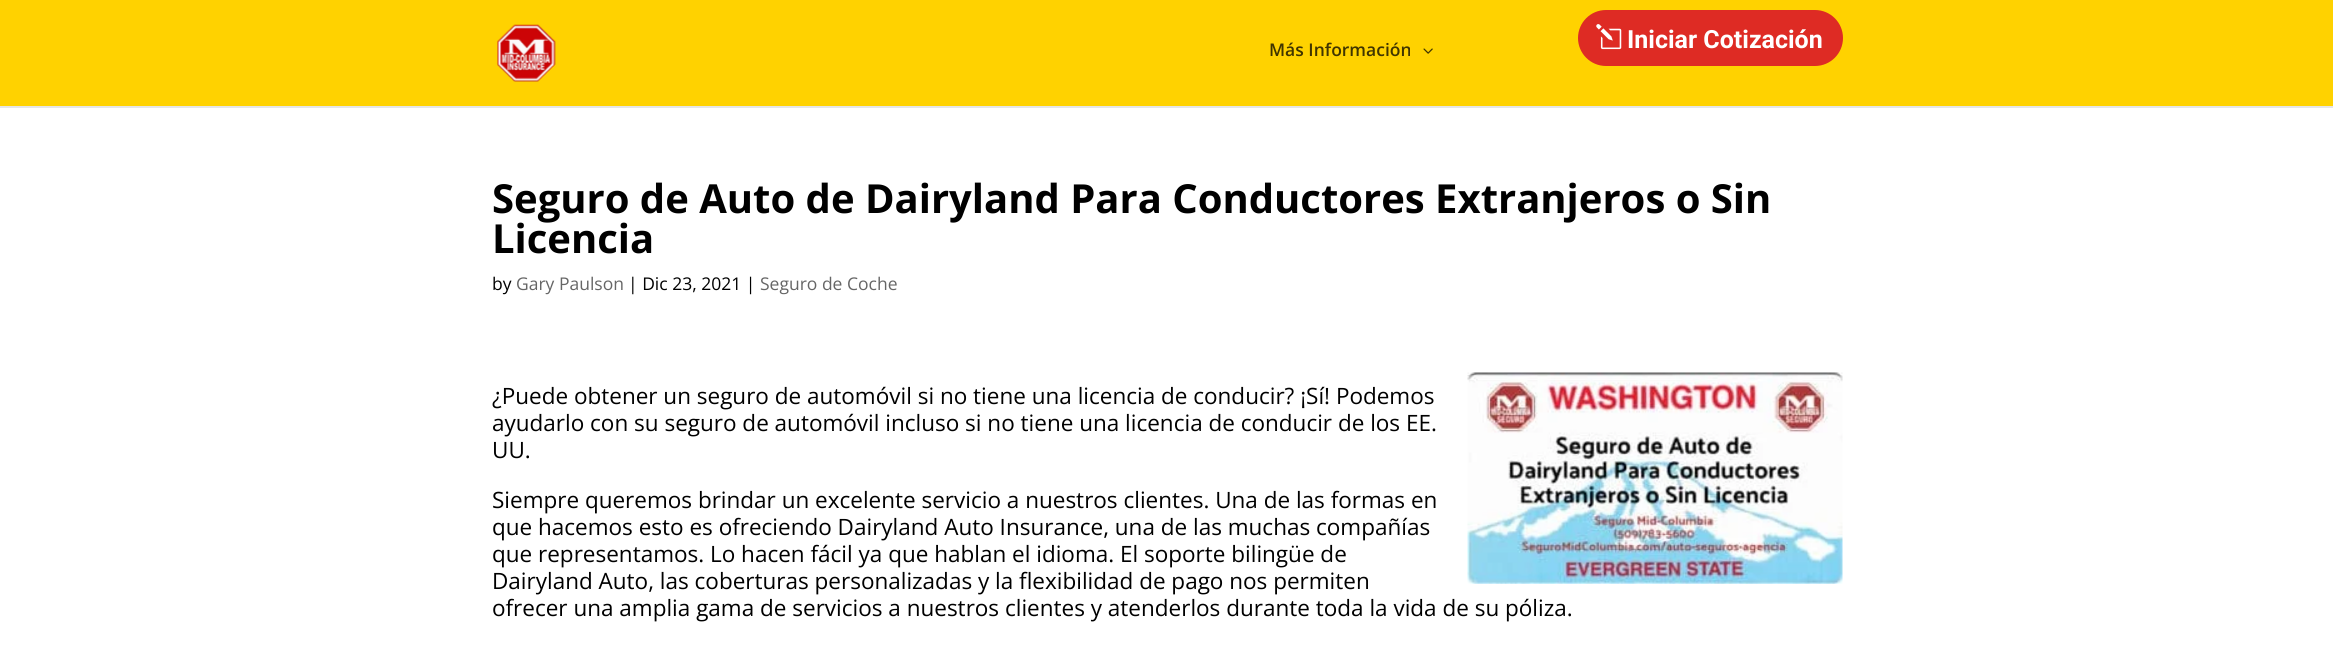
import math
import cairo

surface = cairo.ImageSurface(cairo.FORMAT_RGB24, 2333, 655)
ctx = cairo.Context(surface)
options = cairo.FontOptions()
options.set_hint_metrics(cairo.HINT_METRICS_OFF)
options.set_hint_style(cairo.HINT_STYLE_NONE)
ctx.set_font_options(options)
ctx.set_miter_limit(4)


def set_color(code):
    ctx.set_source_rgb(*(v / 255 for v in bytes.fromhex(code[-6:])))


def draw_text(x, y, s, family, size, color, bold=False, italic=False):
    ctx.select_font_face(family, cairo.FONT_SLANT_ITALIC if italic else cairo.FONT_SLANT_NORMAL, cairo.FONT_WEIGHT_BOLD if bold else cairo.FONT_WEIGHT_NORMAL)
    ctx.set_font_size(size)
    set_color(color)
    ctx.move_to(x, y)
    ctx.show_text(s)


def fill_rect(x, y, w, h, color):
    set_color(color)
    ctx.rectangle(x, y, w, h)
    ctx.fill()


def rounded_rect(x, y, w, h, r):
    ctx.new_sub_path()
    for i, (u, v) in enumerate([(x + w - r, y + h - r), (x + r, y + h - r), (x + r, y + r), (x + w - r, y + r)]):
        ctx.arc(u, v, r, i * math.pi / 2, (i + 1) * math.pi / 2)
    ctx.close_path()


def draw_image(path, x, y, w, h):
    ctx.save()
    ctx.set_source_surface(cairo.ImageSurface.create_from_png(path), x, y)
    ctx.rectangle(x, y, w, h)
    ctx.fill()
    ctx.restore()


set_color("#ffffff")
ctx.paint()
set_color("#e6e6e6")
ctx.new_path()
ctx.move_to(0, 106)
ctx.line_to(0, 108)
ctx.line_to(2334, 108)
ctx.line_to(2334, 1)
ctx.line_to(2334, 106)
ctx.close_path()
ctx.fill()
fill_rect(0, 0, 2333, 106, "#ffd200")
draw_image("assets/img1.png", 497, 24, 59, 58)
draw_text(1269, 56, "Más Información", "Open Sans SemiBold", 17.5, "#403500")
draw_image("assets/img2.png", 1423, 48, 10, 6)
set_color("#de2b24")
rounded_rect(1578, 10, 265, 56, 28)
ctx.fill()
draw_image("assets/img3.png", 1596, 24, 26, 26)
draw_text(1627, 48, "Iniciar Cotización", "Roboto", 25, "#ffffff", bold=True)
draw_text(492, 213, "Seguro de Auto de Dairyland Para Conductores Extranjeros o Sin", "Open Sans", 40, "#000000", bold=True)
draw_text(492, 253, "Licencia", "Open Sans", 40, "#000000", bold=True)
draw_text(492, 290, "by", "Open Sans", 17.5, "#000000")
draw_text(516, 290, "Gary Paulson", "Open Sans", 17.5, "#666666")
draw_text(628, 290, "| Dic 23, 2021 |", "Open Sans", 17.5, "#000000")
draw_text(760, 290, "Seguro de Coche", "Open Sans", 17.5, "#666666")
draw_text(492, 404, "¿Puede obtener un seguro de automóvil si no tiene una licencia de conducir? ¡Sí! Podemos", "Open Sans", 22.5, "#000000")
draw_text(492, 431, "ayudarlo con su seguro de automóvil incluso si no tiene una licencia de conducir de los EE.", "Open Sans", 22.5, "#000000")
draw_text(492, 458, "UU.", "Open Sans", 22.5, "#000000")
draw_image("assets/img4.png", 1467, 372, 376, 212)
draw_text(492, 508, "Siempre queremos brindar un excelente servicio a nuestros clientes. Una de las formas en", "Open Sans", 22.5, "#000000")
draw_text(492, 535, "que hacemos esto es ofreciendo Dairyland Auto Insurance, una de las muchas compañías", "Open Sans", 22.5, "#000000")
draw_text(492, 562, "que representamos. Lo hacen fácil ya que hablan el idioma. El soporte bilingüe de", "Open Sans", 22.5, "#000000")
draw_text(492, 589, "Dairyland Auto, las coberturas personalizadas y la flexibilidad de pago nos permiten", "Open Sans", 22.5, "#000000")
draw_text(492, 616, "ofrecer una amplia gama de servicios a nuestros clientes y atenderlos durante toda la vida de su póliza.", "Open Sans", 22.5, "#000000")
surface.write_to_png("output.png")
